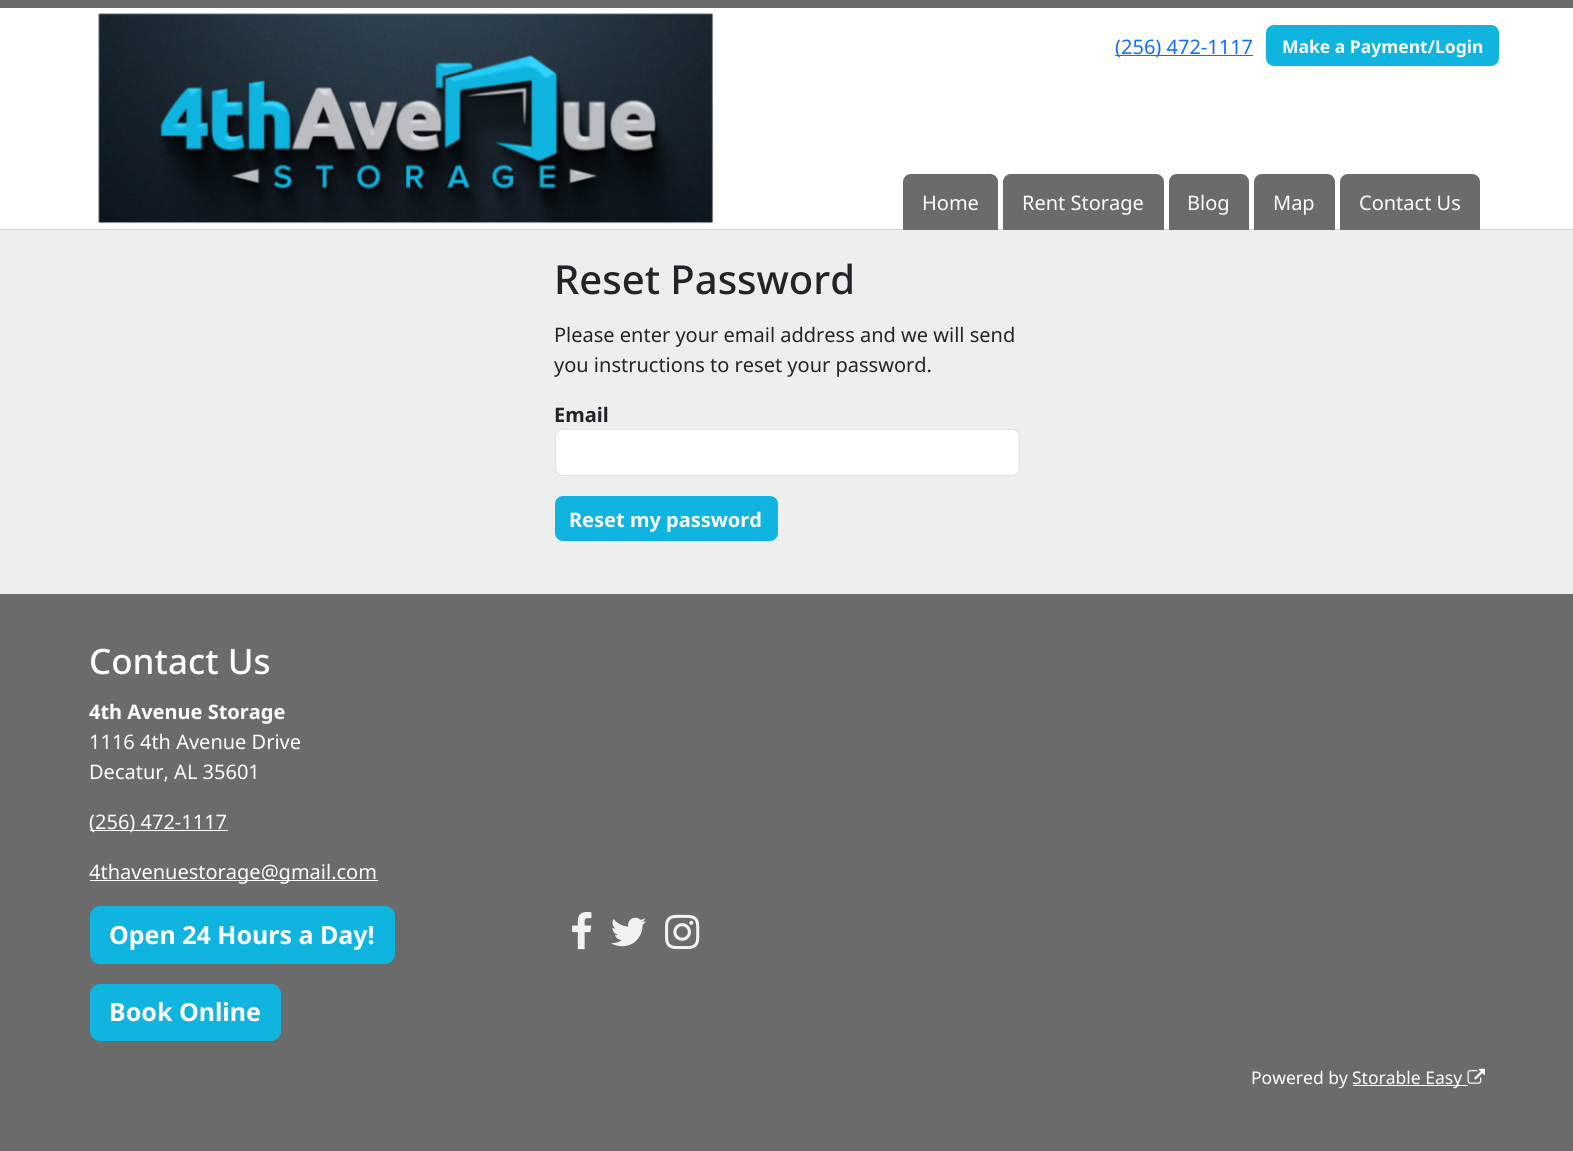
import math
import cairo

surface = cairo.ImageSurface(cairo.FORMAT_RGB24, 1573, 1151)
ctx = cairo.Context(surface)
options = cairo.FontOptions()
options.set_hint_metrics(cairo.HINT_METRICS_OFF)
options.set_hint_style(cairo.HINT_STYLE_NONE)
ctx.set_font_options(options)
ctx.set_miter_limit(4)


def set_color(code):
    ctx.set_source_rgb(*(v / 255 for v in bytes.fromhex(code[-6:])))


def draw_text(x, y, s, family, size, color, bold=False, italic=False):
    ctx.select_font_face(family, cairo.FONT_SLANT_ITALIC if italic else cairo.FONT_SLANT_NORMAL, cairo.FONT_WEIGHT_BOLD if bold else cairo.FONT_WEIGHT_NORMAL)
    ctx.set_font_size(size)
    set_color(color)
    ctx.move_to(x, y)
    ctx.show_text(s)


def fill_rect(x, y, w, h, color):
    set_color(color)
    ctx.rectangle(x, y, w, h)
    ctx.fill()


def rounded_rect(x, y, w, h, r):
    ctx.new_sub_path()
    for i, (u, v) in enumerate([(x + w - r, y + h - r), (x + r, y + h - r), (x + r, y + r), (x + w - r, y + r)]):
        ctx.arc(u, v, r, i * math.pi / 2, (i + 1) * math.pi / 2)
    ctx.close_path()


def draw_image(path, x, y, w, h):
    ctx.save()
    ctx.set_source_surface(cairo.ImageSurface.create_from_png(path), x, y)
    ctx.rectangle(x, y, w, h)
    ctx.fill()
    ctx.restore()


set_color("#eeeeee")
ctx.paint()
set_color("#d6d6d6")
ctx.new_path()
ctx.move_to(0, 229)
ctx.line_to(0, 230)
ctx.line_to(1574, 230)
ctx.line_to(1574, 1)
ctx.line_to(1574, 229)
ctx.close_path()
ctx.fill()
fill_rect(0, 8, 1573, 221, "#ffffff")
fill_rect(0, 0, 1573, 8, "#6b6b6b")
draw_image("assets/img1.png", 98, 13, 615, 211)
fill_rect(1115, 55, 138, 1, "#0d6efd")
draw_text(1115, 54, "(256) 472-1117", "Noto Sans", 20, "#0d6efd")
set_color("#0fb5df")
rounded_rect(1266, 25, 233, 41, 8)
ctx.fill()
draw_text(1282, 53, "Make a Payment/Login", "Noto Sans", 17.5, "#ffffff", bold=True)
set_color("#6b6b6b")
ctx.new_path()
ctx.move_to(911, 174)
ctx.line_to(990, 174)
ctx.curve_to(994.5, 174, 998, 177.5, 998, 182)
ctx.line_to(998, 230)
ctx.line_to(903, 230)
ctx.line_to(903, 182)
ctx.curve_to(903, 177.5, 906.5, 174, 911, 174)
ctx.close_path()
ctx.fill()
draw_text(922, 210, "Home", "Noto Sans", 20, "#ffffff")
set_color("#6b6b6b")
ctx.new_path()
ctx.move_to(1011, 174)
ctx.line_to(1156, 174)
ctx.curve_to(1160.5, 174, 1164, 177.5, 1164, 182)
ctx.line_to(1164, 230)
ctx.line_to(1003, 230)
ctx.line_to(1003, 182)
ctx.curve_to(1003, 177.5, 1006.5, 174, 1011, 174)
ctx.close_path()
ctx.fill()
draw_text(1022, 210, "Rent Storage", "Noto Sans", 20, "#ffffff")
set_color("#6b6b6b")
ctx.new_path()
ctx.move_to(1177, 174)
ctx.line_to(1241, 174)
ctx.curve_to(1245.5, 174, 1249, 177.5, 1249, 182)
ctx.line_to(1249, 230)
ctx.line_to(1169, 230)
ctx.line_to(1169, 182)
ctx.curve_to(1169, 177.5, 1172.5, 174, 1177, 174)
ctx.close_path()
ctx.fill()
draw_text(1187, 210, "Blog", "Noto Sans", 20, "#ffffff")
set_color("#6b6b6b")
ctx.new_path()
ctx.move_to(1262, 174)
ctx.line_to(1327, 174)
ctx.curve_to(1331.5, 174, 1335, 177.5, 1335, 182)
ctx.line_to(1335, 230)
ctx.line_to(1254, 230)
ctx.line_to(1254, 182)
ctx.curve_to(1254, 177.5, 1257.5, 174, 1262, 174)
ctx.close_path()
ctx.fill()
draw_text(1273, 210, "Map", "Noto Sans", 20, "#ffffff")
set_color("#6b6b6b")
ctx.new_path()
ctx.move_to(1348, 174)
ctx.line_to(1472, 174)
ctx.curve_to(1476.5, 174, 1480, 177.5, 1480, 182)
ctx.line_to(1480, 230)
ctx.line_to(1340, 230)
ctx.line_to(1340, 182)
ctx.curve_to(1340, 177.5, 1343.5, 174, 1348, 174)
ctx.close_path()
ctx.fill()
draw_text(1359, 210, "Contact Us", "Noto Sans", 20, "#ffffff")
draw_text(554, 294, "Reset Password", "Noto Sans Medium", 40, "#212529")
draw_text(554, 342, "Please enter your email address and we will send", "Noto Sans", 20, "#212529")
draw_text(554, 372, "you instructions to reset your password.", "Noto Sans", 20, "#212529")
draw_text(554, 422, "Email", "Noto Sans", 20, "#212529", bold=True)
set_color("#ffffff")
rounded_rect(556, 430, 463, 45, 6)
ctx.fill()
rounded_rect(555.5, 429.5, 464, 46, 7.5)
set_color("#dee2e6")
ctx.set_line_width(1)
ctx.stroke()
set_color("#0fb5df")
rounded_rect(555, 496, 223, 45, 8)
ctx.fill()
draw_text(569, 527, "Reset my password", "Noto Sans", 20, "#ffffff", bold=True)
fill_rect(0, 594, 1573, 557, "#6b6b6b")
draw_text(89, 674, "Contact Us", "Noto Sans Medium", 35, "#ffffff")
draw_text(89, 719, "4th Avenue Storage", "Noto Sans", 20, "#ffffff", bold=True)
draw_text(89, 749, "1116 4th Avenue Drive", "Noto Sans", 20, "#ffffff")
draw_text(89, 779, "Decatur, AL 35601", "Noto Sans", 20, "#ffffff")
fill_rect(90, 830, 138, 1, "#ffffff")
draw_text(89, 829, "(256) 472-1117", "Noto Sans", 20, "#ffffff")
fill_rect(90, 880, 288, 1, "#ffffff")
draw_text(89, 879, "4thavenuestorage@gmail.com", "Noto Sans", 20, "#ffffff")
set_color("#0fb5df")
rounded_rect(90, 906, 305, 58, 10)
ctx.fill()
draw_text(109, 944, "Open 24 Hours a Day!", "Noto Sans", 25, "#ffffff", bold=True)
set_color("#0fb5df")
rounded_rect(90, 984, 191, 57, 10)
ctx.fill()
draw_text(109, 1021, "Book Online", "Noto Sans", 25, "#ffffff", bold=True)
draw_image("assets/img2.png", 572, 912, 20, 38)
draw_image("assets/img3.png", 611, 917, 35, 30)
draw_image("assets/img4.png", 665, 914, 35, 36)
draw_text(1251, 1084, "Powered by", "Noto Sans", 17.5, "#ffffff")
fill_rect(1353, 1085, 115, 1, "#ffffff")
draw_text(1352, 1084, "Storable Easy", "Noto Sans", 17.5, "#ffffff")
draw_image("assets/img5.png", 1467, 1068, 18, 16)
surface.write_to_png("output.png")
